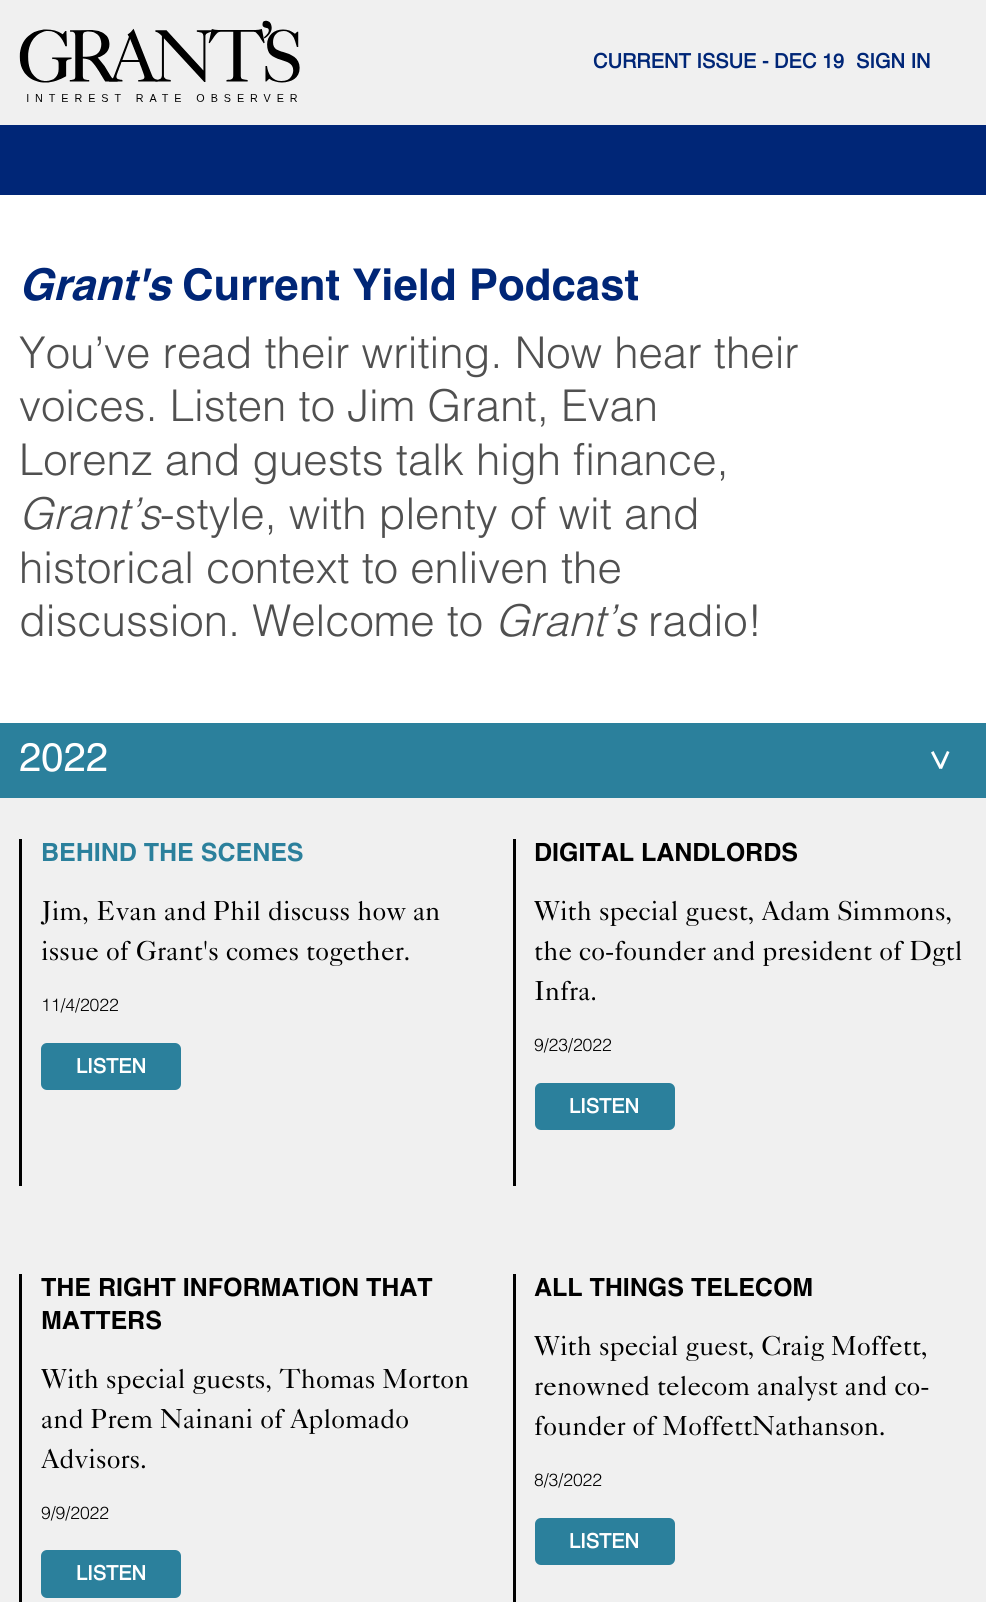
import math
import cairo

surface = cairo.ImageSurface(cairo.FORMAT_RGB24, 986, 1602)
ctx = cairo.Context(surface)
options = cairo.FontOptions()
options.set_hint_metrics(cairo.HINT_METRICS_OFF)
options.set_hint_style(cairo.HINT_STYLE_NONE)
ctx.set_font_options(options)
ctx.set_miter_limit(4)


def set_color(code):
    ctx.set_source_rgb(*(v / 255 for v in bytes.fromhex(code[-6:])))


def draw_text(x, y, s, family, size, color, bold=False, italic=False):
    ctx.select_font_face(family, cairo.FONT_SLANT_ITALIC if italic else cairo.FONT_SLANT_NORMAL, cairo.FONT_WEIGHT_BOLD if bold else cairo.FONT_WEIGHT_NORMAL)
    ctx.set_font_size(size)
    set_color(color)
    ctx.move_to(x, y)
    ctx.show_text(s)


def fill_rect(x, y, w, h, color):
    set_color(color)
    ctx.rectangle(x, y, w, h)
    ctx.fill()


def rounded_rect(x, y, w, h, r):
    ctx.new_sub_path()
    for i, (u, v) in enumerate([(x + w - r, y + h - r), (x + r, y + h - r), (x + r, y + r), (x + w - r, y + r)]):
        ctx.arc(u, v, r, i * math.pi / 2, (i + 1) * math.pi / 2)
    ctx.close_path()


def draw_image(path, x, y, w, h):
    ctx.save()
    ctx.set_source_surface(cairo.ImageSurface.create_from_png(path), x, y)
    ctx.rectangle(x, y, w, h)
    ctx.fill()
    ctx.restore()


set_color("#ffffff")
ctx.paint()
fill_rect(0, 0, 986, 125, "#f0f0f0")
draw_image("assets/img1.png", 19, 20, 281, 82)
draw_text(593, 68, "CURRENT ISSUE - DEC 19", "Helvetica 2", 20, "#002677", bold=True)
draw_text(856, 68, "SIGN IN", "Helvetica 2", 20, "#002677", bold=True)
fill_rect(0, 125, 986, 70, "#002677")
draw_text(19, 300, "Grant's", "Helvetica", 43.75, "#002677", bold=True, italic=True)
draw_text(182, 300, "Current Yield Podcast", "Helvetica", 43.75, "#002677", bold=True)
draw_text(19, 368, "You’ve read their writing. Now hear their", "Helvetica Light", 43.75, "#505050")
draw_text(19, 421, "voices. Listen to Jim Grant, Evan", "Helvetica Light", 43.75, "#505050")
draw_text(19, 475, "Lorenz and guests talk high finance,", "Helvetica Light", 43.75, "#505050")
draw_text(19, 529, "Grant’s", "Helvetica Light", 43.75, "#505050", italic=True)
draw_text(160, 529, "-style, with plenty of wit and", "Helvetica Light", 43.75, "#505050")
draw_text(19, 583, "historical context to enliven the", "Helvetica Light", 43.75, "#505050")
draw_text(19, 636, "discussion. Welcome to", "Helvetica Light", 43.75, "#505050")
draw_text(495, 636, "Grant’s", "Helvetica Light", 43.75, "#505050", italic=True)
draw_text(648, 636, "radio!", "Helvetica Light", 43.75, "#505050")
fill_rect(0, 798, 986, 804, "#f0f0f0")
fill_rect(0, 723, 986, 75, "#2b809c")
draw_text(19, 771, "2022", "Helvetica", 40, "#ffffff")
ctx.new_path()
ctx.move_to(931, 752.5)
ctx.line_to(933.5, 751)
ctx.line_to(942, 767.5)
ctx.line_to(939.5, 769)
ctx.close_path()
ctx.fill()
ctx.new_path()
ctx.move_to(947, 751)
ctx.line_to(949.5, 752)
ctx.line_to(942, 769)
ctx.line_to(939, 768)
ctx.close_path()
ctx.fill()
fill_rect(19, 839, 3, 347, "#000000")
draw_text(41, 861, "BEHIND THE SCENES", "Helvetica", 25, "#2b809c", bold=True)
draw_text(41, 920, "Jim, Evan and Phil discuss how an", "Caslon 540", 27.5, "#000000")
draw_text(41, 960, "issue of Grant's comes together.", "Caslon 540", 27.5, "#000000")
draw_text(41, 1011, "11/4/2022", "Helvetica Light", 17.5, "#000000")
set_color("#2b809c")
rounded_rect(41, 1043, 140, 47, 6)
ctx.fill()
draw_text(76, 1073, "LISTEN", "Helvetica 2", 20, "#ffffff", bold=True)
fill_rect(513, 839, 3, 347, "#000000")
draw_text(534, 861, "DIGITAL LANDLORDS", "Helvetica", 25, "#000000", bold=True)
draw_text(534, 920, "With special guest, Adam Simmons,", "Caslon 540", 27.5, "#000000")
draw_text(534, 960, "the co-founder and president of Dgtl", "Caslon 540", 27.5, "#000000")
draw_text(534, 1000, "Infra.", "Caslon 540", 27.5, "#000000")
draw_text(534, 1051, "9/23/2022", "Helvetica Light", 17.5, "#000000")
set_color("#2b809c")
rounded_rect(535, 1083, 140, 47, 6)
ctx.fill()
draw_text(569, 1113, "LISTEN", "Helvetica 2", 20, "#ffffff", bold=True)
fill_rect(19, 1274, 3, 328, "#000000")
draw_text(41, 1296, "THE RIGHT INFORMATION THAT", "Helvetica", 25, "#000000", bold=True)
draw_text(41, 1329, "MATTERS", "Helvetica", 25, "#000000", bold=True)
draw_text(41, 1388, "With special guests, Thomas Morton", "Caslon 540", 27.5, "#000000")
draw_text(41, 1428, "and Prem Nainani of Aplomado", "Caslon 540", 27.5, "#000000")
draw_text(41, 1468, "Advisors.", "Caslon 540", 27.5, "#000000")
draw_text(41, 1519, "9/9/2022", "Helvetica Light", 17.5, "#000000")
set_color("#2b809c")
rounded_rect(41, 1550, 140, 48, 6)
ctx.fill()
draw_text(76, 1580, "LISTEN", "Helvetica 2", 20, "#ffffff", bold=True)
fill_rect(513, 1274, 3, 328, "#000000")
draw_text(534, 1296, "ALL THINGS TELECOM", "Helvetica", 25, "#000000", bold=True)
draw_text(534, 1355, "With special guest, Craig Moffett,", "Caslon 540", 27.5, "#000000")
draw_text(534, 1395, "renowned telecom analyst and co-", "Caslon 540", 27.5, "#000000")
draw_text(534, 1435, "founder of MoffettNathanson.", "Caslon 540", 27.5, "#000000")
draw_text(534, 1486, "8/3/2022", "Helvetica Light", 17.5, "#000000")
set_color("#2b809c")
rounded_rect(535, 1518, 140, 47, 6)
ctx.fill()
draw_text(569, 1548, "LISTEN", "Helvetica 2", 20, "#ffffff", bold=True)
surface.write_to_png("output.png")
